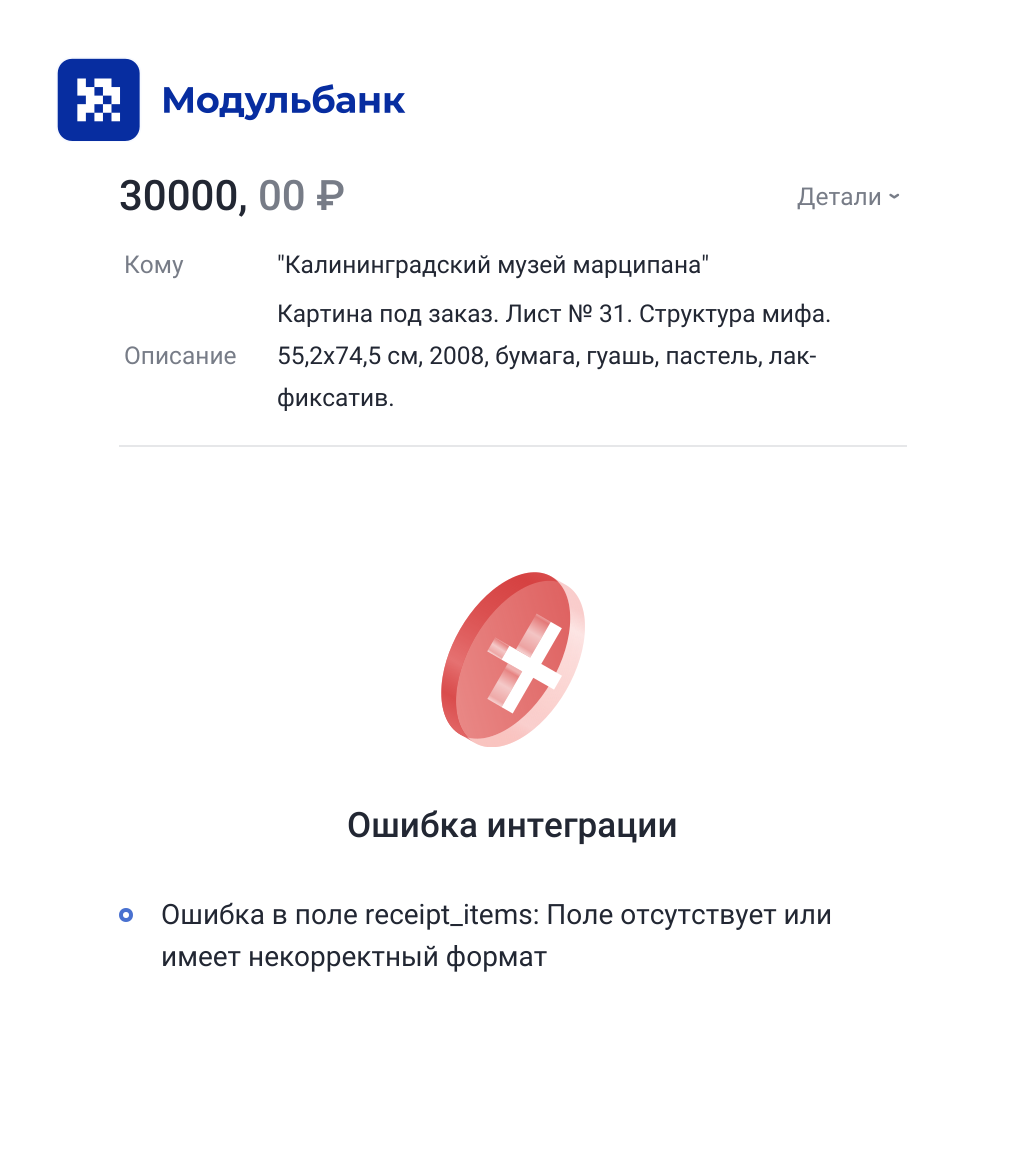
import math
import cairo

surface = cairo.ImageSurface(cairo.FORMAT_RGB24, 1025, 1161)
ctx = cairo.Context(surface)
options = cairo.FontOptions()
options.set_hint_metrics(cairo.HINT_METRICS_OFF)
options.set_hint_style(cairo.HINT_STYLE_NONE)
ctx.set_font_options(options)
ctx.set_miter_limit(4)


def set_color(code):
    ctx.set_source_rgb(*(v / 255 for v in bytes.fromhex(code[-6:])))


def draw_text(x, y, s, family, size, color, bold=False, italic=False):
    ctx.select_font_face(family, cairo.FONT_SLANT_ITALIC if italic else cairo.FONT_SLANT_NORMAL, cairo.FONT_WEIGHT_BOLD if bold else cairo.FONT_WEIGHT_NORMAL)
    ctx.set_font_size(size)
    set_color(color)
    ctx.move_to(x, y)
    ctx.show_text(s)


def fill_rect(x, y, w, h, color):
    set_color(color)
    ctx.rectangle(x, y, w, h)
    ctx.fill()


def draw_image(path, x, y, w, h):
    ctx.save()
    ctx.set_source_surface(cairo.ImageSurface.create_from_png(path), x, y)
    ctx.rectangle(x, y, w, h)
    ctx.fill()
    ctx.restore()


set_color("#ffffff")
ctx.paint()
draw_image("assets/img1.png", 56, 57, 350, 85)
fill_rect(119, 445, 788, 2, "#e6e7e9")
draw_text(119, 210, "30000,", "Roboto Medium", 42, "#222733")
draw_text(258, 210, "00 ₽", "Roboto Medium", 42, "#777c87")
draw_text(797, 205, "Детали", "Roboto", 24.5, "#777c87")
draw_image("assets/img2.png", 889, 193, 11, 6)
draw_text(124, 273, "Кому", "Roboto", 24.5, "#777c87")
draw_text(277, 273, "\"Калининградский музей марципана\"", "Roboto", 24.5, "#222733")
draw_text(124, 364, "Описание", "Roboto", 24.5, "#777c87")
draw_text(277, 322, "Картина под заказ. Лист № 31. Структура мифа.", "Roboto", 24.5, "#222733")
draw_text(277, 364, "55,2х74,5 см, 2008, бумага, гуашь, пастель, лак-", "Roboto", 24.5, "#222733")
draw_text(277, 406, "фиксатив.", "Roboto", 24.5, "#222733")
draw_image("assets/img3.png", 441, 572, 144, 175)
draw_text(347, 837, "Ошибка интеграции", "Roboto Medium", 35, "#222733")
ctx.new_path()
ctx.arc(126, 915, 5, 0, 2 * math.pi)
set_color("#4971d0")
ctx.set_line_width(4)
ctx.stroke()
draw_text(161, 924, "Ошибка в поле receipt_items: Поле отсутствует или", "Roboto", 28, "#222733")
draw_text(161, 966, "имеет некорректный формат", "Roboto", 28, "#222733")
surface.write_to_png("output.png")
